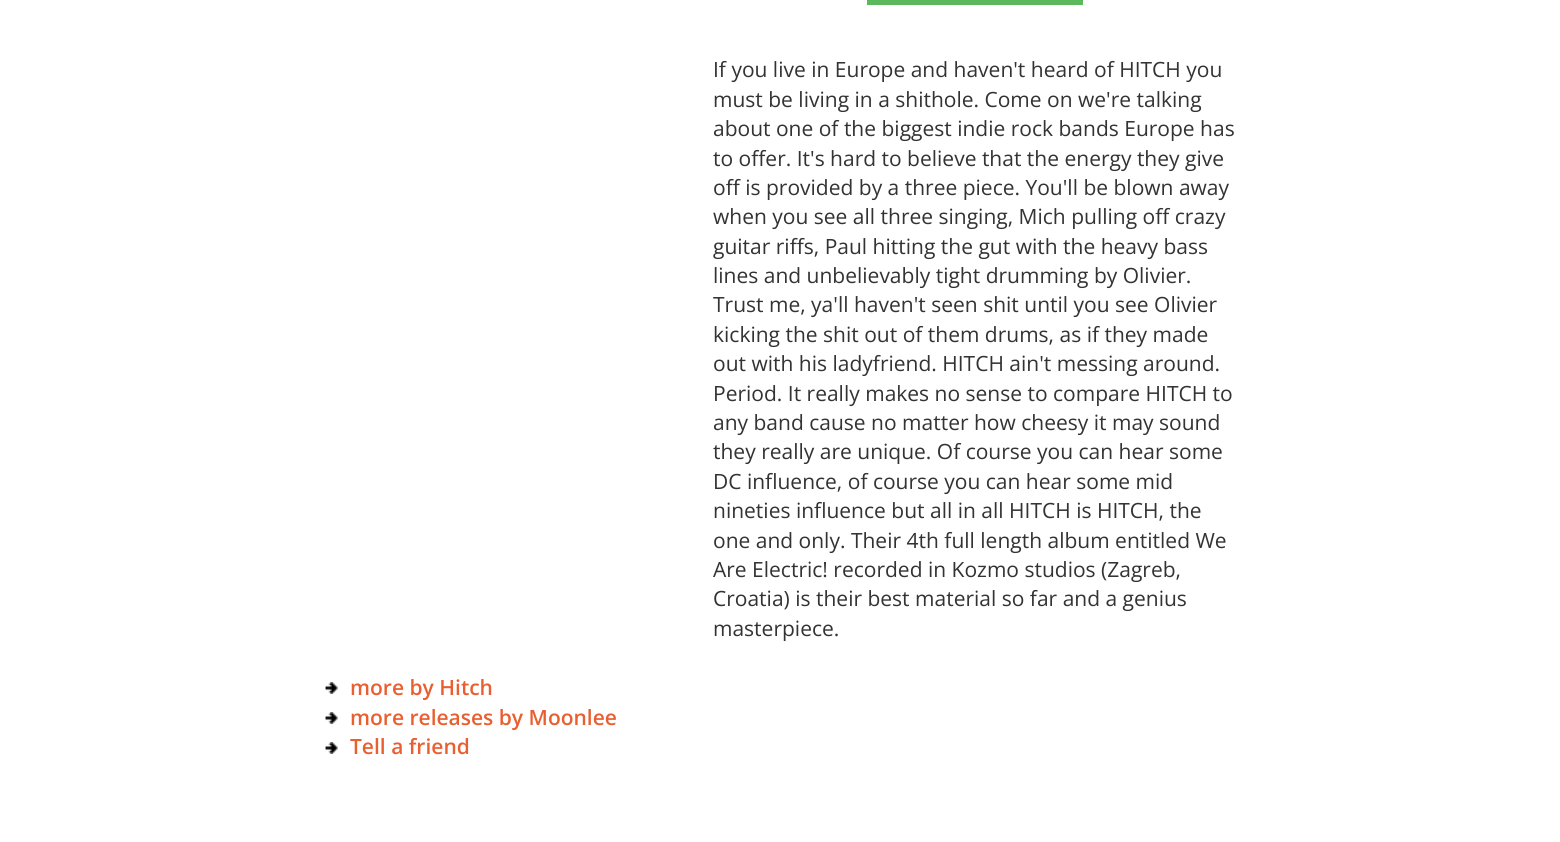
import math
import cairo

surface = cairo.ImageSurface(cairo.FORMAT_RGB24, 1560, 842)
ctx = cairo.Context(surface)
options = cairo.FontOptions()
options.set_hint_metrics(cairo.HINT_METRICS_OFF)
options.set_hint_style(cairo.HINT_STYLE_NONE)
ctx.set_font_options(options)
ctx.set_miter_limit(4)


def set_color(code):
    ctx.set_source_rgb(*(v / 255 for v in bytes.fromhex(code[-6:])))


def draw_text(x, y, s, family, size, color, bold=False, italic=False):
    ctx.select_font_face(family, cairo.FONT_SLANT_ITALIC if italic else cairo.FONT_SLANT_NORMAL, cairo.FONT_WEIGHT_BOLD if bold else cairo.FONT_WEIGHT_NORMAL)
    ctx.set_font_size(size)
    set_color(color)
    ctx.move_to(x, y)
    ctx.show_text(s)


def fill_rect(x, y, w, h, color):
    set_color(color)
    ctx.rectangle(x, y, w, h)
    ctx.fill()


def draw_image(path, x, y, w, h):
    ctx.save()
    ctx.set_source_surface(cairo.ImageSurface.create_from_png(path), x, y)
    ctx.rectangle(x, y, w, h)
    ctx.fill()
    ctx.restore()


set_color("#ffffff")
ctx.paint()
fill_rect(867, 0, 216, 5, "#5cb85c")
draw_text(713, 77, "If you live in Europe and haven't heard of HITCH you", "Open Sans", 21, "#333333")
draw_text(713, 107, "must be living in a shithole. Come on we're talking", "Open Sans", 21, "#333333")
draw_text(713, 136, "about one of the biggest indie rock bands Europe has", "Open Sans", 21, "#333333")
draw_text(713, 166, "to offer. It's hard to believe that the energy they give", "Open Sans", 21, "#333333")
draw_text(713, 195, "off is provided by a three piece. You'll be blown away", "Open Sans", 21, "#333333")
draw_text(713, 224, "when you see all three singing, Mich pulling off crazy", "Open Sans", 21, "#333333")
draw_text(713, 254, "guitar riffs, Paul hitting the gut with the heavy bass", "Open Sans", 21, "#333333")
draw_text(713, 283, "lines and unbelievably tight drumming by Olivier.", "Open Sans", 21, "#333333")
draw_text(713, 312, "Trust me, ya'll haven't seen shit until you see Olivier", "Open Sans", 21, "#333333")
draw_text(713, 342, "kicking the shit out of them drums, as if they made", "Open Sans", 21, "#333333")
draw_text(713, 371, "out with his ladyfriend. HITCH ain't messing around.", "Open Sans", 21, "#333333")
draw_text(713, 401, "Period. It really makes no sense to compare HITCH to", "Open Sans", 21, "#333333")
draw_text(713, 430, "any band cause no matter how cheesy it may sound", "Open Sans", 21, "#333333")
draw_text(713, 459, "they really are unique. Of course you can hear some", "Open Sans", 21, "#333333")
draw_text(713, 489, "DC influence, of course you can hear some mid", "Open Sans", 21, "#333333")
draw_text(713, 518, "nineties influence but all in all HITCH is HITCH, the", "Open Sans", 21, "#333333")
draw_text(713, 548, "one and only. Their 4th full length album entitled We", "Open Sans", 21, "#333333")
draw_text(713, 577, "Are Electric! recorded in Kozmo studios (Zagreb,", "Open Sans", 21, "#333333")
draw_text(713, 606, "Croatia) is their best material so far and a genius", "Open Sans", 21, "#333333")
draw_text(713, 636, "masterpiece.", "Open Sans", 21, "#333333")
draw_image("assets/img1.png", 325, 682, 13, 12)
draw_text(350, 695, "more by Hitch", "Open Sans SemiBold", 21, "#e95f30")
draw_image("assets/img1.png", 325, 712, 13, 12)
draw_text(350, 725, "more releases by Moonlee", "Open Sans SemiBold", 21, "#e95f30")
draw_image("assets/img1.png", 325, 742, 13, 12)
draw_text(350, 754, "Tell a friend", "Open Sans SemiBold", 21, "#e95f30")
surface.write_to_png("output.png")
